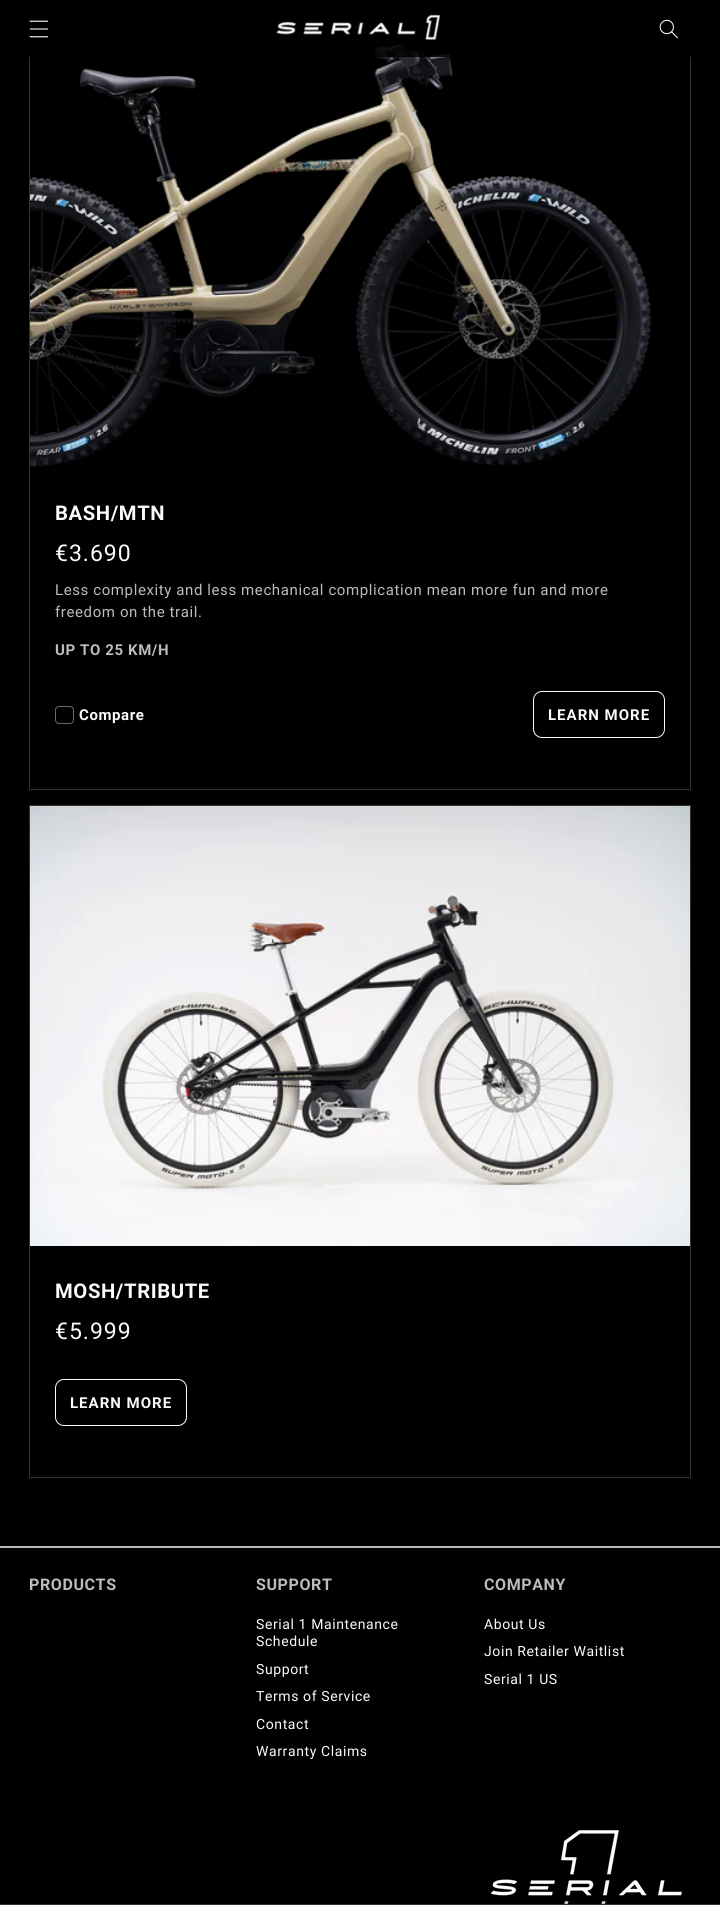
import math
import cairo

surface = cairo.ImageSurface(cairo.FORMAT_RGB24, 720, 1905)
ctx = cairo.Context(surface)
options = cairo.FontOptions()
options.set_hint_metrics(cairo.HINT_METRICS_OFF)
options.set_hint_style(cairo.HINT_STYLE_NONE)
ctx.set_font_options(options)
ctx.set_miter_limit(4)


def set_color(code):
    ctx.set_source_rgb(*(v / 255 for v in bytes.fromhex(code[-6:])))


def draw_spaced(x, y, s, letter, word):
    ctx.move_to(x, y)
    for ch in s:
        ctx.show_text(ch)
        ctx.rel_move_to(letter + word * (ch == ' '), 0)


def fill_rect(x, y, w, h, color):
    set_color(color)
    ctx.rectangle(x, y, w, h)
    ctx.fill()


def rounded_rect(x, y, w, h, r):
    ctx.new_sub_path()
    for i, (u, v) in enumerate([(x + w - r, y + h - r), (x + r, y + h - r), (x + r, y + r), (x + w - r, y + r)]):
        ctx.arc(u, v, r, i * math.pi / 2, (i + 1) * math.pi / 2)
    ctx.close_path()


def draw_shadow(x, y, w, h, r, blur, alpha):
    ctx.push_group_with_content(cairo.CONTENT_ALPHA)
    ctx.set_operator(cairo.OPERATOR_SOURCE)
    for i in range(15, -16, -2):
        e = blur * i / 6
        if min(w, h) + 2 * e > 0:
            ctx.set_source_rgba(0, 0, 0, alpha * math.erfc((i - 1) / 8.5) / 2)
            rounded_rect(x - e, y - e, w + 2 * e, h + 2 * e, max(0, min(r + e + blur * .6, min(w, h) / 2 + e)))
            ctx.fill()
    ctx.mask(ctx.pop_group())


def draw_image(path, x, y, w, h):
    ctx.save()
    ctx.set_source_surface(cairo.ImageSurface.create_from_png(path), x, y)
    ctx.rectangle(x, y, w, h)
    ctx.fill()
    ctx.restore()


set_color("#000000")
ctx.paint()
rounded_rect(29.5, -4.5, 18, 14, 3.5)
set_color("#6f686a")
ctx.set_line_width(1)
ctx.stroke()
ctx.rectangle(29.5, 27.5, 661, 762)
set_color("#323232")
ctx.stroke()
draw_image("assets/img4.png", 30, 44, 622, 424)
ctx.set_source_rgba(0, 0, 0, 0.85)
ctx.rectangle(29, 7, 662, 50)
ctx.fill()
gradient = cairo.LinearGradient(360, 0, 360, 57)
gradient.add_color_stop_rgba(0, 0, 0, 0, 1)
gradient.add_color_stop_rgba(0.12, 0, 0, 0, 1)
gradient.add_color_stop_rgba(0.34, 0, 0, 0, 0.8)
gradient.add_color_stop_rgba(0.68, 0, 0, 0, 0.5)
gradient.add_color_stop_rgba(1, 0, 0, 0, 0)
ctx.set_source(gradient)
ctx.rectangle(29, 0, 662, 53)
ctx.fill()
draw_image("assets/img1.png", 29, 20, 20, 18)
draw_image("assets/img2.png", 276, 14, 165, 27)
draw_image("assets/img3.png", 659, 19, 19, 20)
ctx.select_font_face("Roboto", cairo.FONT_SLANT_NORMAL, cairo.FONT_WEIGHT_BOLD)
ctx.set_font_size(20.25)
set_color("#fbfbfb")
draw_spaced(55, 520, "BASH/MTN", 0.6, 0)
ctx.select_font_face("Roboto")
ctx.set_font_size(23)
draw_spaced(55, 561, "€3.690", 1, 0)
ctx.set_font_size(15)
set_color("#bcbcbc")
draw_spaced(55, 595, "Less complexity and less mechanical complication mean more fun and more", 0.6, 0)
draw_spaced(55, 617, "freedom on the trail.", 0.6, 0)
ctx.select_font_face("Roboto", cairo.FONT_SLANT_NORMAL, cairo.FONT_WEIGHT_BOLD)
draw_spaced(55, 655, "UP TO 25 KM/H", 0.6, 0)
rounded_rect(55.5, 706.5, 18, 17, 3.5)
set_color("#6f686a")
ctx.stroke()
set_color("#fbfbfb")
draw_spaced(79, 720, "Compare", 0.6, 0)
rounded_rect(533.5, 691.5, 131, 46, 8.5)
ctx.stroke()
draw_spaced(548, 720, "LEARN MORE", 1, 0)
ctx.rectangle(29.5, 805.5, 661, 672)
set_color("#323232")
ctx.stroke()
draw_image("assets/img5.png", 30, 806, 660, 440)
ctx.set_font_size(20.25)
set_color("#fbfbfb")
draw_spaced(55, 1298, "MOSH/TRIBUTE", 0.6, 0)
ctx.select_font_face("Roboto")
ctx.set_font_size(23)
draw_spaced(55, 1339, "€5.999", 1, 0)
rounded_rect(55.5, 1379.5, 131, 46, 8.5)
ctx.stroke()
ctx.select_font_face("Roboto", cairo.FONT_SLANT_NORMAL, cairo.FONT_WEIGHT_BOLD)
ctx.set_font_size(15)
draw_spaced(70, 1408, "LEARN MORE", 1, 0)
fill_rect(0, 1546, 720, 2, "#bcbcbc")
ctx.set_font_size(16)
draw_spaced(29, 1590, "PRODUCTS", 0.6, 0)
draw_spaced(256, 1590, "SUPPORT", 0.6, 0)
ctx.select_font_face("Roboto")
ctx.set_font_size(14)
set_color("#fbfbfb")
draw_spaced(256, 1629, "Serial 1 Maintenance", 0.6, 0)
draw_spaced(256, 1646, "Schedule", 0.6, 0)
draw_spaced(256, 1674, "Support", 0.6, 0)
draw_spaced(256, 1701, "Terms of Service", 0.6, 0)
draw_spaced(256, 1729, "Contact", 0.6, 0)
draw_spaced(256, 1756, "Warranty Claims", 0.6, 0)
ctx.select_font_face("Roboto", cairo.FONT_SLANT_NORMAL, cairo.FONT_WEIGHT_BOLD)
ctx.set_font_size(16)
set_color("#bcbcbc")
draw_spaced(484, 1590, "COMPANY", 0.6, 0)
ctx.select_font_face("Roboto")
ctx.set_font_size(14)
set_color("#fbfbfb")
draw_spaced(484, 1629, "About Us", 0.6, 0)
draw_spaced(484, 1656, "Join Retailer Waitlist", 0.6, 0)
draw_spaced(484, 1684, "Serial 1 US", 0.6, 0)
draw_image("assets/img6.png", 491, 1830, 191, 74)
set_color("#000000")
draw_shadow(0, 1904, 720, 1, 0, 4, 0.5)
fill_rect(0, 1904, 720, 1, "#2f2f2f")
surface.write_to_png("output.png")
